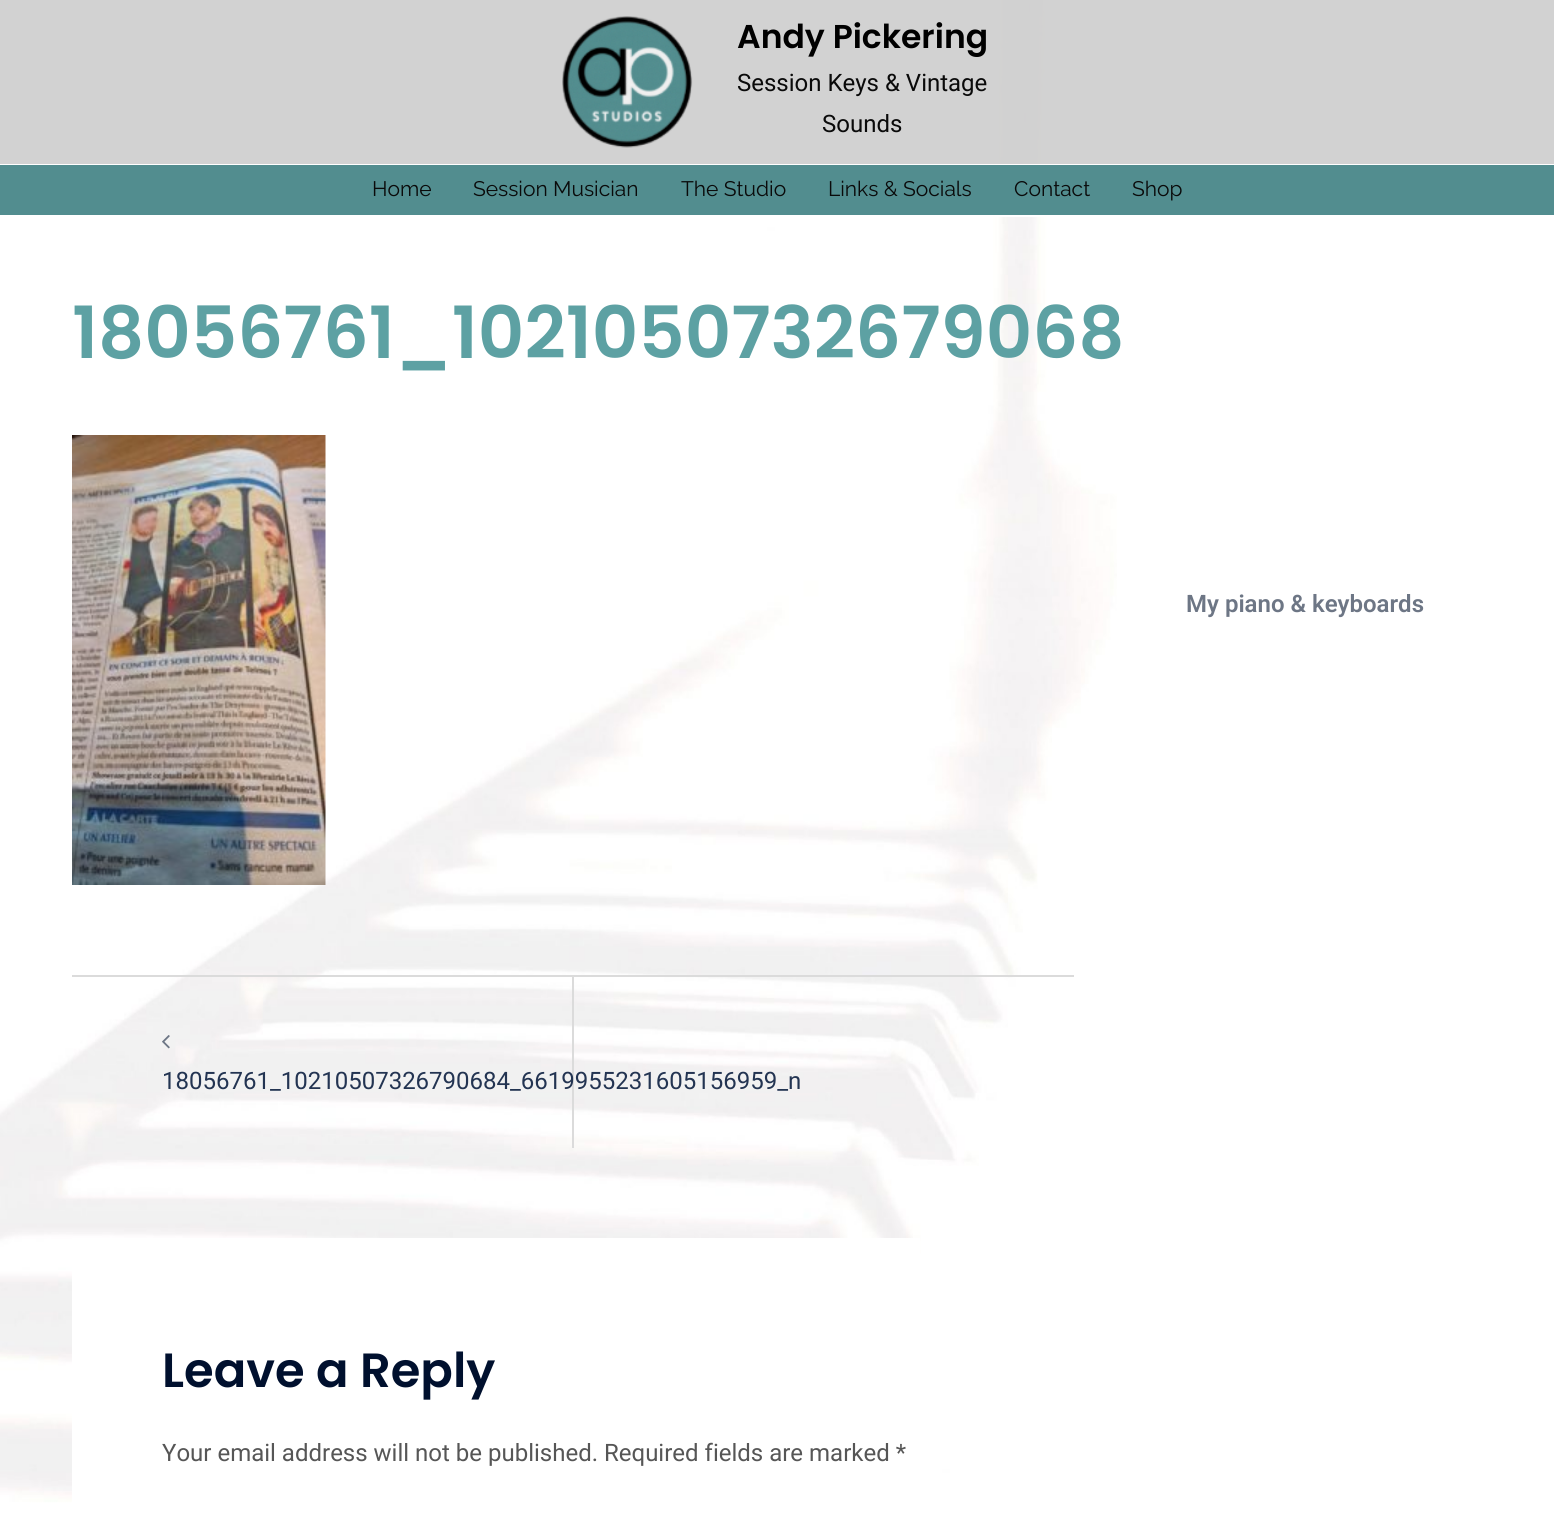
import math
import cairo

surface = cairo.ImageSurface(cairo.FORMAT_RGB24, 1554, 1513)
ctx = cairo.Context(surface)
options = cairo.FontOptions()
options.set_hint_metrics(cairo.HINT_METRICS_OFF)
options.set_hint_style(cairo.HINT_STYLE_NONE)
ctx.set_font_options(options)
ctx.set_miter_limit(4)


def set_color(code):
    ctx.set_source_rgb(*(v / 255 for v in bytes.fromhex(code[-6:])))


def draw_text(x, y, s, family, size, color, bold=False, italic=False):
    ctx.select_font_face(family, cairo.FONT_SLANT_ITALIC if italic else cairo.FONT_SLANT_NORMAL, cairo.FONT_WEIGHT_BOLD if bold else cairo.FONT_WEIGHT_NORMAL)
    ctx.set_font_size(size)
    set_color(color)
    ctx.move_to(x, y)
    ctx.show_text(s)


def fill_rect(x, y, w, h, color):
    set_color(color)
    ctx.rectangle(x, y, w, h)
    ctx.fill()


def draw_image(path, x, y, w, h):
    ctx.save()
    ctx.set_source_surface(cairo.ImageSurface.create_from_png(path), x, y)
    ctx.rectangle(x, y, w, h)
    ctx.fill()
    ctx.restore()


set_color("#ffffff")
ctx.paint()
draw_image("assets/img1.png", 0, 0, 1117, 1513)
ctx.set_source_rgba(0.8, 0.8, 0.8, 0.89)
ctx.rectangle(0, 0, 1554, 164)
ctx.fill()
fill_rect(995, 164, 50, 1, "#ffffff")
draw_image("assets/img2.png", 562, 16, 131, 132)
draw_text(737, 48, "Andy Pickering", "Poppins SemiBold", 33, "#000000")
draw_text(737, 91, "Session Keys & Vintage", "Roboto", 24, "#0a0a0a")
draw_text(822, 132, "Sounds", "Roboto", 24, "#0a0a0a")
fill_rect(0, 165, 1554, 50, "#528d8f")
fill_rect(995, 215, 49, 2, "#ffffff")
draw_text(372, 196, "Home", "Raleway Thin", 21, "#0a0a0a")
draw_text(473, 196, "Session Musician", "Raleway Thin", 21, "#0a0a0a")
draw_text(681, 196, "The Studio", "Raleway Thin", 21, "#0a0a0a")
draw_text(828, 196, "Links & Socials", "Raleway Thin", 21, "#0a0a0a")
draw_text(1014, 196, "Contact", "Raleway Thin", 21, "#0a0a0a")
draw_text(1132, 196, "Shop", "Raleway Thin", 21, "#0a0a0a")
draw_text(72, 358, "18056761_1021050732679068", "Poppins SemiBold", 72, "#5da1a3")
draw_image("assets/img3.png", 72, 435, 254, 450)
fill_rect(72, 975, 1002, 2, "#dbdbdb")
fill_rect(572, 977, 2, 171, "#dbdbdb")
draw_image("assets/img4.png", 162, 1035, 8, 14)
draw_text(162, 1089, "18056761_10210507326790684_6619955231605156959_n", "Roboto", 24, "#233452")
fill_rect(72, 1238, 848, 275, "#ffffff")
draw_text(162, 1387, "Leave a Reply", "Poppins SemiBold", 48, "#00102e")
draw_text(162, 1461, "Your email address will not be published. Required fields are marked *", "Roboto", 24, "#565656")
draw_text(1186, 612, "My piano & keyboards", "Roboto SemiBold", 24, "#6d7685")
surface.write_to_png("output.png")
